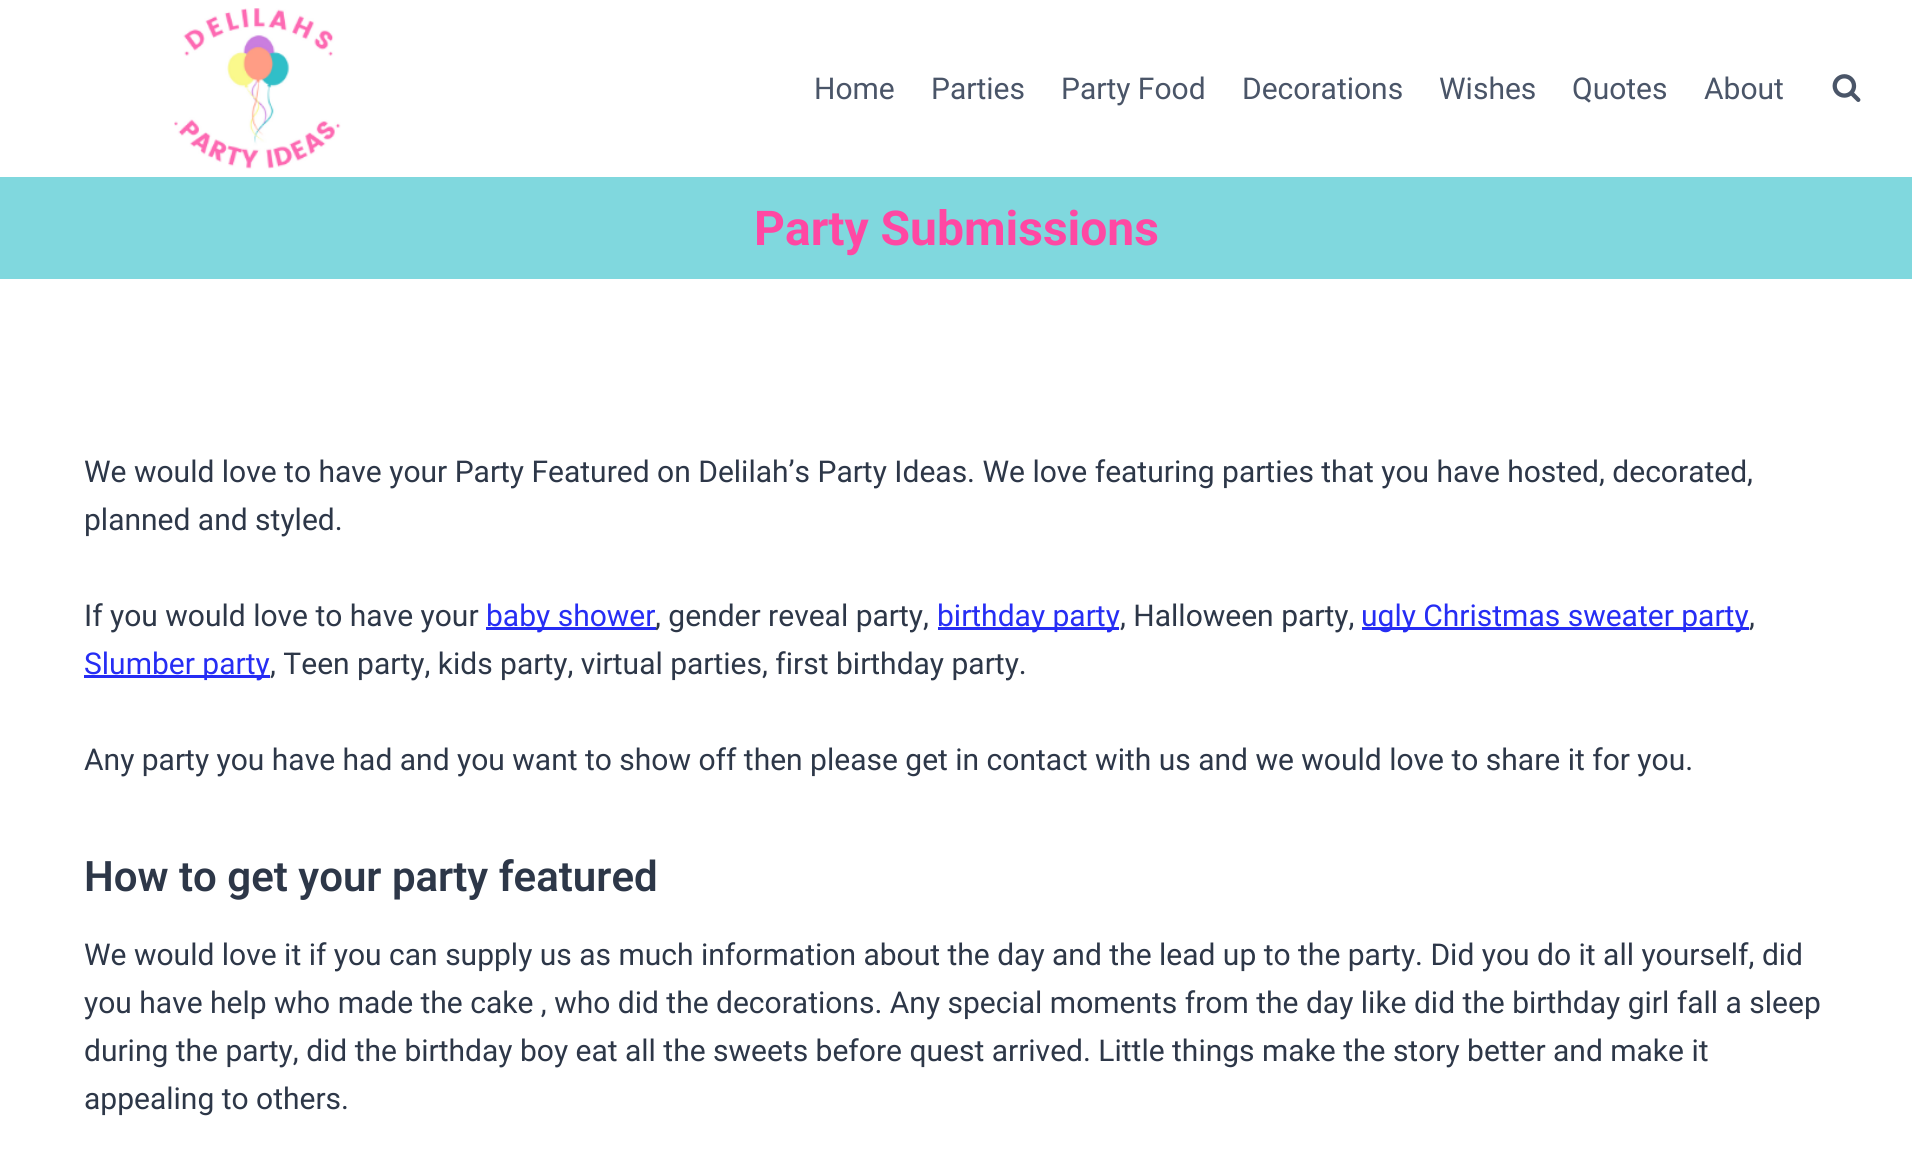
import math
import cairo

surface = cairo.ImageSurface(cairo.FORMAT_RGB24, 1912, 1149)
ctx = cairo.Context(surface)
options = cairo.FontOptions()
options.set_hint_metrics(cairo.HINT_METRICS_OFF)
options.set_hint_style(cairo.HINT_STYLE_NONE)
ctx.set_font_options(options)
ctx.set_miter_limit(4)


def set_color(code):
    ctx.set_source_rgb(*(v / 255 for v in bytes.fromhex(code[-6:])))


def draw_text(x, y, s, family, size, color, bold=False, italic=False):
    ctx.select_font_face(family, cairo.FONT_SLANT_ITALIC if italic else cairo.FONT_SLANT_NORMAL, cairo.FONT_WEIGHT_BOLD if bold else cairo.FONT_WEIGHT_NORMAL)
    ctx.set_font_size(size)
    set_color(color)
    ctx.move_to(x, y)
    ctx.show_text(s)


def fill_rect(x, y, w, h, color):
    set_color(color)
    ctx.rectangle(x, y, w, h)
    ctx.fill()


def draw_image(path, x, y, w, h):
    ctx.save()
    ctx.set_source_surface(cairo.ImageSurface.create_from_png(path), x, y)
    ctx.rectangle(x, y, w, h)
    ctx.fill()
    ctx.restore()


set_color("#ffffff")
ctx.paint()
draw_image("assets/img1.png", 174, 8, 167, 161)
draw_text(814, 99, "Home", "Roboto", 30, "#4a5568")
draw_text(931, 99, "Parties", "Roboto", 30, "#4a5568")
draw_text(1061, 99, "Party Food", "Roboto", 30, "#4a5568")
draw_text(1242, 99, "Decorations", "Roboto", 30, "#4a5568")
draw_text(1439, 99, "Wishes", "Roboto", 30, "#4a5568")
draw_text(1572, 99, "Quotes", "Roboto", 30, "#4a5568")
draw_text(1704, 99, "About", "Roboto", 30, "#4a5568")
draw_image("assets/img2.png", 1832, 74, 29, 28)
fill_rect(0, 177, 1912, 102, "#80d8de")
draw_text(754, 245, "Party Submissions", "Roboto", 48, "#ff48a3", bold=True)
draw_text(84, 482, "We would love to have your Party Featured on Delilah’s Party Ideas. We love featuring parties that you have hosted, decorated,", "Roboto", 30, "#2d3748")
draw_text(84, 530, "planned and styled.", "Roboto", 30, "#2d3748")
draw_text(84, 626, "If you would love to have your", "Roboto", 30, "#2d3748")
fill_rect(486, 627, 170, 3, "#262df4")
draw_text(486, 626, "baby shower", "Roboto", 30, "#262df4")
draw_text(655, 626, ", gender reveal party,", "Roboto", 30, "#2d3748")
fill_rect(938, 627, 181, 3, "#262df4")
draw_text(937, 626, "birthday party", "Roboto", 30, "#262df4")
draw_text(1120, 626, ", Halloween party,", "Roboto", 30, "#2d3748")
fill_rect(1362, 627, 387, 3, "#262df4")
draw_text(1361, 626, "ugly Christmas sweater party", "Roboto", 30, "#262df4")
draw_text(1749, 626, ",", "Roboto", 30, "#2d3748")
fill_rect(84, 675, 186, 3, "#262df4")
draw_text(84, 674, "Slumber party", "Roboto", 30, "#262df4")
draw_text(270, 674, ", Teen party, kids party, virtual parties, first birthday party.", "Roboto", 30, "#2d3748")
draw_text(84, 770, "Any party you have had and you want to show off then please get in contact with us and we would love to share it for you.", "Roboto", 30, "#2d3748")
draw_text(84, 891, "How to get your party featured", "Roboto SemiBold", 42, "#2d3748")
draw_text(84, 965, "We would love it if you can supply us as much information about the day and the lead up to the party. Did you do it all yourself, did", "Roboto", 30, "#2d3748")
draw_text(84, 1013, "you have help who made the cake , who did the decorations. Any special moments from the day like did the birthday girl fall a sleep", "Roboto", 30, "#2d3748")
draw_text(84, 1061, "during the party, did the birthday boy eat all the sweets before quest arrived. Little things make the story better and make it", "Roboto", 30, "#2d3748")
draw_text(84, 1109, "appealing to others.", "Roboto", 30, "#2d3748")
surface.write_to_png("output.png")
